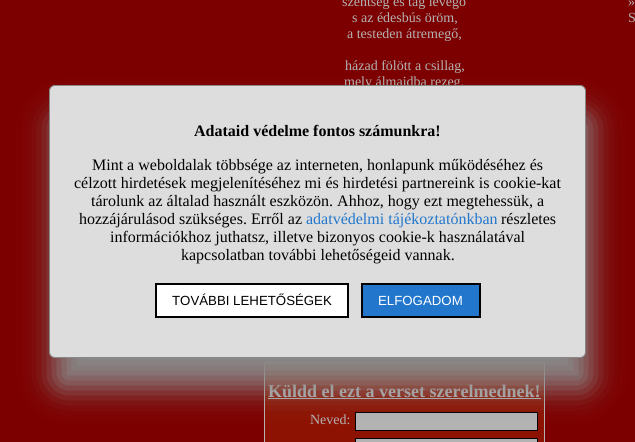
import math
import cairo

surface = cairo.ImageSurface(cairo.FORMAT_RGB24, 635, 442)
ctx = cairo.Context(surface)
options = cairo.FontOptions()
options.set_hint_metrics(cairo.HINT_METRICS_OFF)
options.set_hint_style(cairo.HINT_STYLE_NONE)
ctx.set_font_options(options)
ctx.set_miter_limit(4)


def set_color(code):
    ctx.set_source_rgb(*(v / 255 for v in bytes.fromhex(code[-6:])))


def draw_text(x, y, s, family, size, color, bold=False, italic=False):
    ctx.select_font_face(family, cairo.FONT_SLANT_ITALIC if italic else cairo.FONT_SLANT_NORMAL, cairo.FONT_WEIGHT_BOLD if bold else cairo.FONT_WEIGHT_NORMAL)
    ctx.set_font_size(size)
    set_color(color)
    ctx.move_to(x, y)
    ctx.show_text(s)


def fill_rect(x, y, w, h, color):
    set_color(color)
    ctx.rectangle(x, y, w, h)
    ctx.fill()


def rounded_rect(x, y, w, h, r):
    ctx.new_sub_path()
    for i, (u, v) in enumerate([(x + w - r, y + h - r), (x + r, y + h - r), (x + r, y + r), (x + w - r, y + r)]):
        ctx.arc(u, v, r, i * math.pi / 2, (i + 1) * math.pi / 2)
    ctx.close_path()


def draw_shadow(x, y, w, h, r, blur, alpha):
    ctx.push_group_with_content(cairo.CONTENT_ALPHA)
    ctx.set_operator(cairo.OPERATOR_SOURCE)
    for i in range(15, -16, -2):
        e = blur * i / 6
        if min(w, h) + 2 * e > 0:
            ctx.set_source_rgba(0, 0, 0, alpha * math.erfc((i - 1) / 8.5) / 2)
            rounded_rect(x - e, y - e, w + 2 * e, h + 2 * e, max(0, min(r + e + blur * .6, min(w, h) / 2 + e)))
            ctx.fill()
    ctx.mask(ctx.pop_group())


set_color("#7d0000")
ctx.paint()
draw_text(342, 6, "szentség és tág levegő", "Liberation Serif", 14, "#b3b3b3")
draw_text(352, 22, "s az édesbús öröm,", "Liberation Serif", 14, "#b3b3b3")
draw_text(347, 38, "a testeden átremegő,", "Liberation Serif", 14, "#b3b3b3")
draw_text(345, 70, "házad fölött a csillag,", "Liberation Serif", 14, "#b3b3b3")
draw_text(344, 86, "mely álmaidba rezeg,", "Liberation Serif", 14, "#b3b3b3")
set_color("#8d1201")
ctx.rectangle(264.5, 362.5, 280, 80)
ctx.fill_preserve()
set_color("#b3b3b3")
ctx.set_line_width(1)
ctx.stroke()
draw_text(268, 397, "Küldd el ezt a verset szerelmednek!", "Liberation Serif", 18, "#b3b3b3", bold=True)
fill_rect(268, 398, 273, 1, "#b3b3b3")
draw_text(310, 424, "Neved:", "Liberation Serif", 14, "#b3b3b3")
ctx.rectangle(355.5, 412.5, 182, 18)
ctx.fill_preserve()
set_color("#000000")
ctx.stroke()
set_color("#b3b3b3")
ctx.rectangle(355.5, 438.5, 182, 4)
ctx.fill_preserve()
set_color("#000000")
ctx.stroke()
draw_text(628, 6, "»", "Liberation Serif", 14, "#b3b3b3")
draw_text(628, 22, "S", "Liberation Serif", 14, "#b3b3b3")
set_color("#888888")
draw_shadow(54, 115, 537, 273, 6, 15, 1)
set_color("#dddddd")
rounded_rect(49.5, 85.5, 536, 272, 5.5)
ctx.fill_preserve()
set_color("#888888")
ctx.stroke()
draw_text(194, 136, "Adataid védelme fontos számunkra!", "Liberation Serif", 16, "#000000", bold=True)
draw_text(92, 170, "Mint a weboldalak többsége az interneten, honlapunk működéséhez és", "Liberation Serif", 16, "#000000")
draw_text(74, 188, "célzott hirdetések megjelenítéséhez mi és hirdetési partnereink is cookie-kat", "Liberation Serif", 16, "#000000")
draw_text(91, 206, "tárolunk az általad használt eszközön. Ahhoz, hogy ezt megtehessük, a", "Liberation Serif", 16, "#000000")
draw_text(79, 224, "hozzájárulásod szükséges. Erről az", "Liberation Serif", 16, "#000000")
draw_text(306, 224, "adatvédelmi tájékoztatónkban", "Liberation Serif", 16, "#2277cc")
draw_text(501, 224, "részletes", "Liberation Serif", 16, "#000000")
draw_text(110, 242, "információkhoz juthatsz, illetve bizonyos cookie-k használatával", "Liberation Serif", 16, "#000000")
draw_text(181, 260, "kapcsolatban további lehetőségeid vannak.", "Liberation Serif", 16, "#000000")
set_color("#ffffff")
ctx.rectangle(156, 284, 192, 33)
ctx.fill_preserve()
set_color("#000000")
ctx.set_line_width(2)
ctx.stroke()
draw_text(172, 305, "TOVÁBBI LEHETŐSÉGEK", "Liberation Sans", 13.25, "#000000")
set_color("#2277cc")
ctx.rectangle(362, 284, 118, 33)
ctx.fill_preserve()
set_color("#000000")
ctx.stroke()
draw_text(378, 305, "ELFOGADOM", "Liberation Sans", 13.25, "#ffffff")
surface.write_to_png("output.png")
